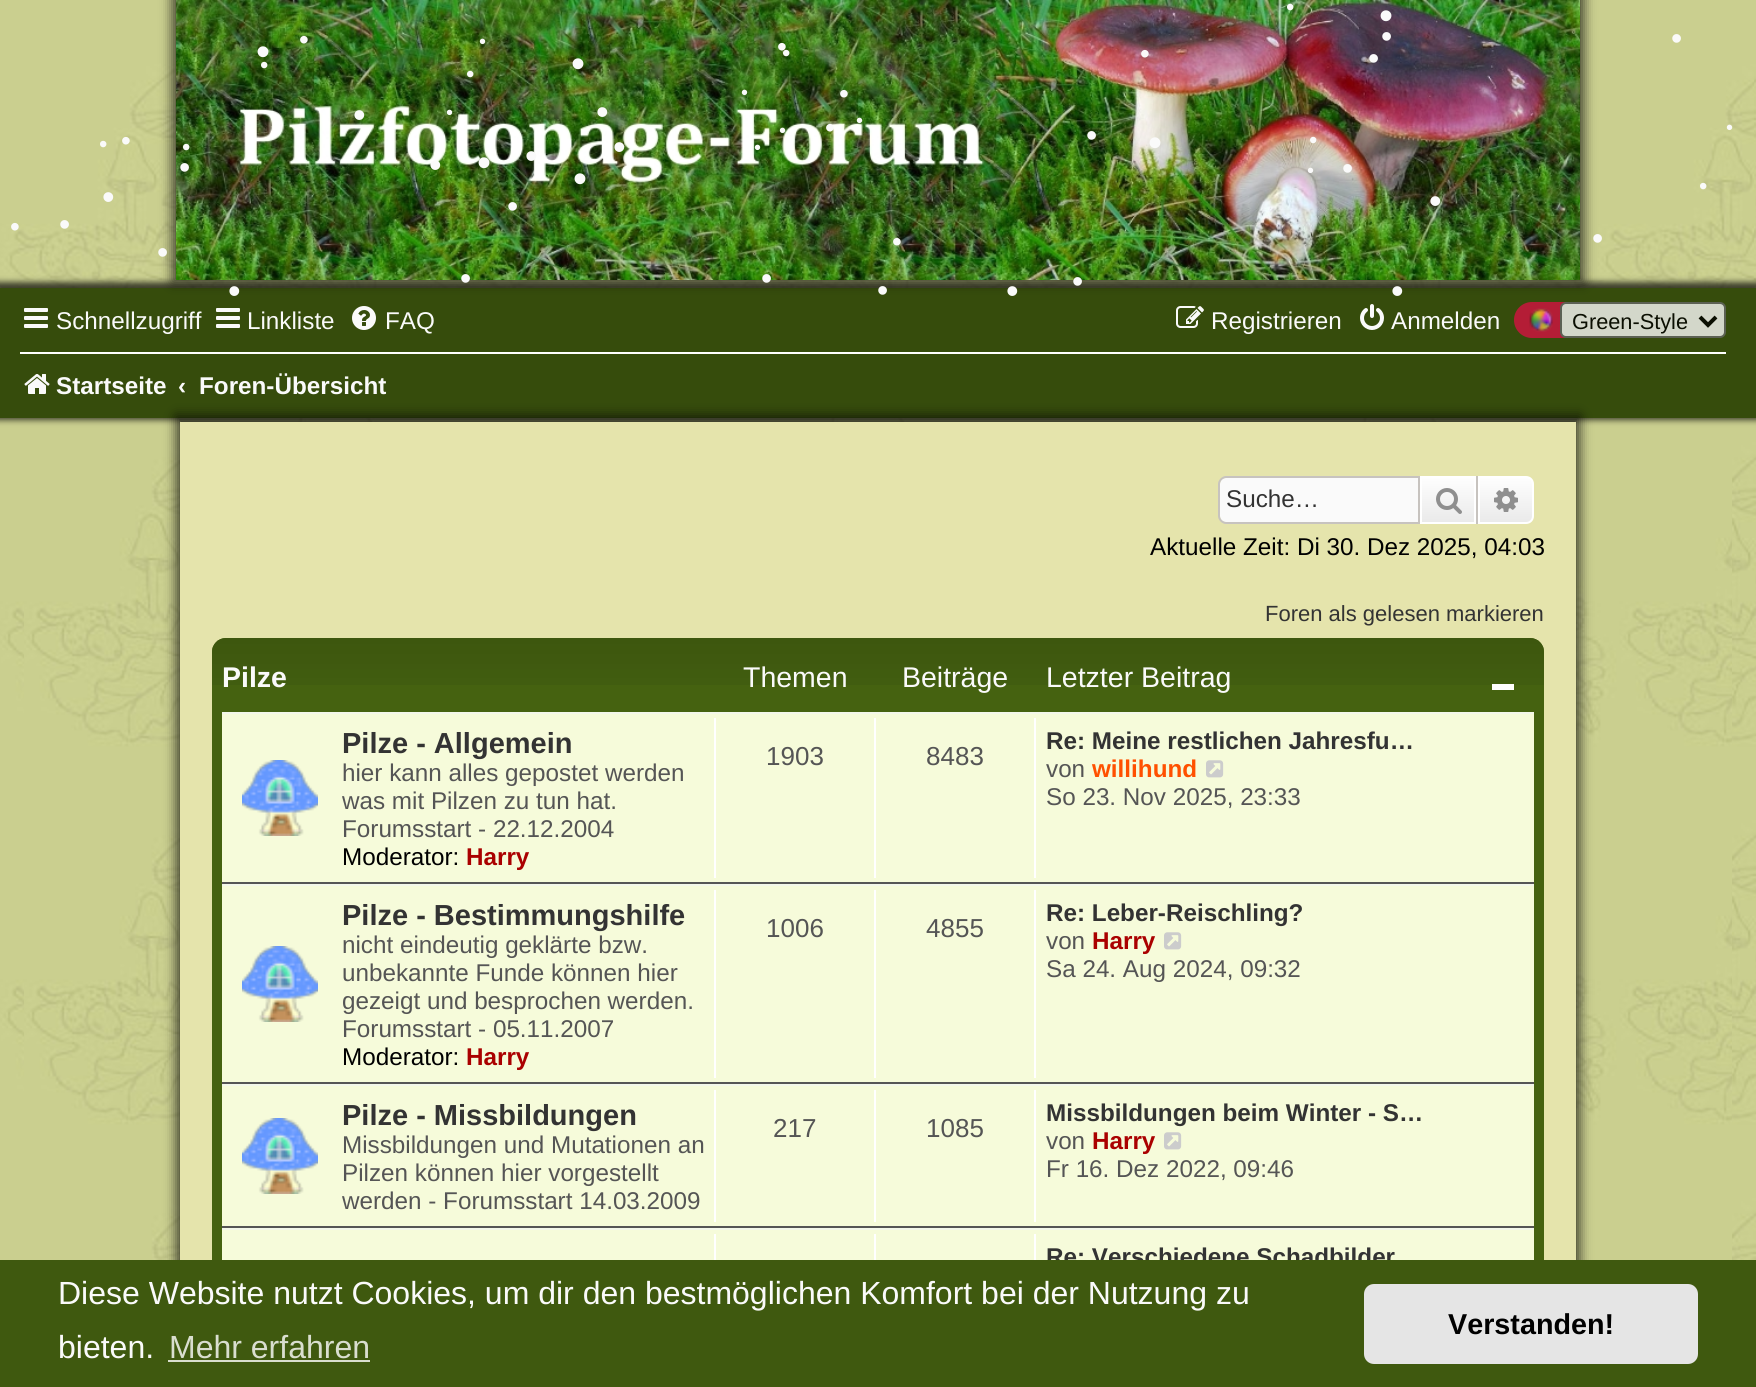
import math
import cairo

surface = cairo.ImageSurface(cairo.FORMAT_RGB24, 1756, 1387)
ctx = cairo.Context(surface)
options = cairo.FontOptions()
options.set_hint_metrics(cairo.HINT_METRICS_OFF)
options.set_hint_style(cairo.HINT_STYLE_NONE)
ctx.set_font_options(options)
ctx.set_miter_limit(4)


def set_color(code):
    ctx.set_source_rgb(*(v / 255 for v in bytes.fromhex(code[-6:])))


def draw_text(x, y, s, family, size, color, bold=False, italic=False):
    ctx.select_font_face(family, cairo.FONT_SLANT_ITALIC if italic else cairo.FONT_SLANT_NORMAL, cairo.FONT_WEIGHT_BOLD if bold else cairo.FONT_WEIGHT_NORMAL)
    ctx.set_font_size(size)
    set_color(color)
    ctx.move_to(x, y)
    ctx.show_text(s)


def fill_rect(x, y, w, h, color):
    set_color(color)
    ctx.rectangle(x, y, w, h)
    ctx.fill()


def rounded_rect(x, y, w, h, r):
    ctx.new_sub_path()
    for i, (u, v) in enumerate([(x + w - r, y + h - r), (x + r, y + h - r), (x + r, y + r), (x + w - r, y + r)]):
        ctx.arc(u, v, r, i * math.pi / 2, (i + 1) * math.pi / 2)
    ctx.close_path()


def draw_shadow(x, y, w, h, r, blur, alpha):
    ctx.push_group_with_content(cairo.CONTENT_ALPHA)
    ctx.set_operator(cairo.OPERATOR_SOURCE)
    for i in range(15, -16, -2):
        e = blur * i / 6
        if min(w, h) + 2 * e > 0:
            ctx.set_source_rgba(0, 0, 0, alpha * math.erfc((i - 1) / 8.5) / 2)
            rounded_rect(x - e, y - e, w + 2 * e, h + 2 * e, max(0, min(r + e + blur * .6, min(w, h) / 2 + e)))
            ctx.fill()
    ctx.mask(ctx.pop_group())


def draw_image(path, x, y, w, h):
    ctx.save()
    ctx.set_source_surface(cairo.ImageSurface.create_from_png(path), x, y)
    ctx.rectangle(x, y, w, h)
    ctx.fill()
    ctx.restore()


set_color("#ffffff")
ctx.paint()
draw_image("assets/img1.png", 0, 0, 1756, 1260)
draw_image("assets/img3.png", 2, 0, 1752, 280)
draw_image("assets/img2.png", 24, 280, 1708, 980)
set_color("#020202")
draw_shadow(-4, 282, 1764, 138, 0, 3, 0.7)
fill_rect(0, 288, 1756, 130, "#364c0c")
set_color("#020202")
draw_shadow(172, -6, 1412, 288, 0, 6, 0.7)
draw_image("assets/img4.png", 176, 0, 1404, 280)
draw_text(1286, 15, "•", "Liberation Sans", 24, "#fafafa")
draw_text(1379, 29, "•", "Liberation Sans", 40, "#fafafa")
draw_text(256, 65, "•", "Liberation Sans", 40, "#fafafa")
draw_text(299, 49, "•", "Liberation Sans", 28, "#fafafa")
draw_text(479, 48, "•", "Liberation Sans", 20, "#fafafa")
draw_text(571, 77, "•", "Liberation Sans", 40, "#fafafa")
draw_text(777, 56, "•", "Liberation Sans", 28, "#fafafa")
draw_text(782, 61, "•", "Liberation Sans", 24, "#fafafa")
draw_text(1140, 63, "•", "Liberation Sans", 28, "#fafafa")
draw_text(1368, 69, "•", "Liberation Sans", 32, "#fafafa")
draw_text(1381, 47, "•", "Liberation Sans", 32, "#fafafa")
draw_text(1671, 49, "•", "Liberation Sans", 32, "#fafafa")
draw_text(260, 73, "•", "Liberation Sans", 24, "#fafafa")
draw_text(466, 82, "•", "Liberation Sans", 24, "#fafafa")
draw_text(741, 99, "•", "Liberation Sans", 20, "#fafafa")
draw_text(839, 103, "•", "Liberation Sans", 28, "#fafafa")
draw_text(353, 127, "•", "Liberation Sans", 36, "#fafafa")
draw_text(446, 119, "•", "Liberation Sans", 20, "#fafafa")
draw_text(596, 124, "•", "Liberation Sans", 36, "#fafafa")
draw_text(856, 127, "•", "Liberation Sans", 20, "#fafafa")
draw_text(99, 152, "•", "Liberation Sans", 24, "#fafafa")
draw_text(121, 150, "•", "Liberation Sans", 28, "#fafafa")
draw_text(182, 155, "•", "Liberation Sans", 24, "#fafafa")
draw_text(613, 159, "•", "Liberation Sans", 36, "#fafafa")
draw_text(754, 154, "•", "Liberation Sans", 20, "#fafafa")
draw_text(779, 137, "•", "Liberation Sans", 20, "#fafafa")
draw_text(825, 137, "•", "Liberation Sans", 28, "#fafafa")
draw_text(1086, 146, "•", "Liberation Sans", 32, "#fafafa")
draw_text(1148, 156, "•", "Liberation Sans", 40, "#fafafa")
draw_text(1309, 148, "•", "Liberation Sans", 24, "#fafafa")
draw_text(1726, 134, "•", "Liberation Sans", 20, "#fafafa")
draw_text(525, 168, "•", "Liberation Sans", 36, "#fafafa")
draw_text(179, 178, "•", "Liberation Sans", 32, "#fafafa")
draw_text(429, 177, "•", "Liberation Sans", 36, "#fafafa")
draw_text(477, 176, "•", "Liberation Sans", 40, "#fafafa")
draw_text(1307, 177, "•", "Liberation Sans", 20, "#fafafa")
draw_text(1342, 179, "•", "Liberation Sans", 32, "#fafafa")
draw_text(573, 192, "•", "Liberation Sans", 40, "#fafafa")
draw_text(1699, 194, "•", "Liberation Sans", 24, "#fafafa")
draw_text(102, 209, "•", "Liberation Sans", 36, "#fafafa")
draw_text(804, 202, "•", "Liberation Sans", 6, "#5e5f49")
draw_text(1429, 213, "•", "Liberation Sans", 36, "#fafafa")
draw_text(507, 217, "•", "Liberation Sans", 32, "#fafafa")
draw_text(10, 236, "•", "Liberation Sans", 28, "#fafafa")
draw_text(59, 235, "•", "Liberation Sans", 32, "#fafafa")
draw_text(892, 251, "•", "Liberation Sans", 28, "#fafafa")
draw_text(1592, 249, "•", "Liberation Sans", 32, "#fafafa")
draw_text(157, 263, "•", "Liberation Sans", 32, "#fafafa")
draw_text(460, 289, "•", "Liberation Sans", 32, "#fafafa")
draw_text(761, 289, "•", "Liberation Sans", 32, "#fafafa")
draw_text(1072, 292, "•", "Liberation Sans", 32, "#fafafa")
draw_text(228, 303, "•", "Liberation Sans", 36, "#fafafa")
draw_text(877, 301, "•", "Liberation Sans", 32, "#fafafa")
draw_text(1006, 303, "•", "Liberation Sans", 36, "#fafafa")
draw_text(1391, 303, "•", "Liberation Sans", 36, "#fafafa")
draw_image("assets/img5.png", 24, 308, 24, 20)
draw_text(56, 329, "Schnellzugriff", "Liberation Sans", 24.25, "#fafafa")
draw_image("assets/img5.png", 216, 308, 24, 20)
draw_text(247, 329, "Linkliste", "Liberation Sans", 24.25, "#fafafa")
draw_image("assets/img6.png", 352, 306, 24, 24)
draw_text(385, 329, "FAQ", "Liberation Sans", 24.25, "#fafafa")
draw_image("assets/img7.png", 1176, 306, 28, 22)
draw_text(1211, 329, "Registrieren", "Liberation Sans", 24.25, "#fafafa")
draw_image("assets/img8.png", 1360, 304, 24, 26)
draw_text(1391, 329, "Anmelden", "Liberation Sans", 24.25, "#fafafa")
set_color("#b41d36")
rounded_rect(1514, 302, 212, 36, 18)
ctx.fill()
draw_image("assets/img9.png", 1529, 308, 24, 24)
set_color("#d3d7ca")
rounded_rect(1561, 303, 164, 34, 5)
ctx.fill_preserve()
set_color("#5c6154")
ctx.stroke()
ctx.new_path()
ctx.move_to(1700, 317)
ctx.line_to(1708, 325)
ctx.line_to(1716, 317)
set_color("#0b0f02")
ctx.set_line_width(4)
ctx.stroke()
draw_text(1572, 329, "Green-Style", "Liberation Sans", 21.75, "#0b0f02")
fill_rect(20, 352, 1706, 2, "#ffffff")
draw_image("assets/img10.png", 24, 374, 26, 20)
draw_text(56, 394, "Startseite", "Liberation Sans", 24.25, "#fafafa", bold=True)
draw_text(178, 394, "‹", "Liberation Sans", 24.25, "#fafafa", bold=True)
draw_text(199, 394, "Foren-Übersicht", "Liberation Sans", 24.25, "#fafafa", bold=True)
set_color("#020202")
draw_shadow(176, 416, 1404, 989, 0, 6, 0.7)
fill_rect(180, 422, 1396, 838, "#e5e4ac")
set_color("#fafafa")
ctx.new_path()
ctx.move_to(1226, 478)
ctx.line_to(1418, 478)
ctx.line_to(1418, 522)
ctx.line_to(1226, 522)
ctx.curve_to(1222.5, 522, 1220, 519.5, 1220, 516)
ctx.line_to(1220, 484)
ctx.curve_to(1220, 480.5, 1222.5, 478, 1226, 478)
ctx.close_path()
ctx.fill()
set_color("#c7c3bf")
ctx.set_fill_rule(cairo.FILL_RULE_EVEN_ODD)
ctx.new_path()
ctx.move_to(1226, 476)
ctx.line_to(1418, 476)
ctx.line_to(1418, 524)
ctx.line_to(1226, 524)
ctx.curve_to(1222, 524, 1218, 520, 1218, 516)
ctx.line_to(1218, 484)
ctx.curve_to(1218, 480, 1222, 476, 1226, 476)
ctx.close_path()
ctx.move_to(1226, 478)
ctx.line_to(1418, 478)
ctx.line_to(1418, 522)
ctx.line_to(1226, 522)
ctx.curve_to(1223, 522, 1220, 519, 1220, 516)
ctx.line_to(1220, 484)
ctx.curve_to(1220, 481, 1223, 478, 1226, 478)
ctx.close_path()
ctx.fill()
draw_text(1226, 507, "Suche…", "Liberation Sans", 24.25, "#333333")
gradient = cairo.LinearGradient(1448, 476, 1448, 524)
gradient.add_color_stop_rgba(0, 1, 1, 1, 1)
gradient.add_color_stop_rgba(1, 0.914, 0.914, 0.914, 1)
ctx.set_source(gradient)
ctx.rectangle(1422, 478, 52, 44)
ctx.fill()
ctx.rectangle(1421, 477, 54, 46)
set_color("#ffffff")
ctx.set_line_width(2)
ctx.stroke()
fill_rect(1476, 476, 2, 48, "#c7c3bf")
fill_rect(1418, 476, 2, 48, "#c7c3bf")
draw_image("assets/img11.png", 1436, 488, 26, 26)
gradient = cairo.LinearGradient(1506, 476, 1506, 524)
gradient.add_color_stop_rgba(0, 1, 1, 1, 1)
gradient.add_color_stop_rgba(1, 0.914, 0.914, 0.914, 1)
ctx.set_source(gradient)
ctx.new_path()
ctx.move_to(1479, 477)
ctx.line_to(1526, 477)
ctx.curve_to(1530, 477, 1533, 480, 1533, 484)
ctx.line_to(1533, 516)
ctx.curve_to(1533, 520, 1530, 523, 1526, 523)
ctx.line_to(1479, 523)
ctx.close_path()
ctx.fill_preserve()
set_color("#ffffff")
ctx.stroke()
draw_image("assets/img12.png", 1494, 488, 24, 24)
draw_text(1150, 555, "Aktuelle Zeit: Di 30. Dez 2025, 04:03", "Liberation Sans", 24.25, "#000000")
draw_text(1265, 621, "Foren als gelesen markieren", "Liberation Sans", 22, "#333333")
set_color("#456210")
rounded_rect(212, 638, 1332, 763, 14)
ctx.fill()
draw_image("assets/img13.png", 212, 638, 1332, 47)
draw_text(222, 687, "Pilze", "Liberation Sans", 28.5, "#fafafa", bold=True)
draw_text(743, 687, "Themen", "Liberation Sans", 28.5, "#fafafa")
draw_text(902, 687, "Beiträge", "Liberation Sans", 28.5, "#fafafa")
draw_text(1046, 687, "Letzter Beitrag", "Liberation Sans", 28.5, "#fafafa")
fill_rect(1492, 684, 22, 6, "#ffffff")
fill_rect(222, 714, 1312, 546, "#f6fbda")
fill_rect(222, 712, 1312, 2, "#f3f7ea")
fill_rect(222, 882, 1312, 2, "#555555")
draw_image("assets/img14.png", 242, 760, 76, 76)
draw_text(342, 753, "Pilze - Allgemein", "Liberation Sans", 29, "#333333", bold=True)
draw_text(342, 781, "hier kann alles gepostet werden", "Liberation Sans", 24.25, "#555555")
draw_text(342, 809, "was mit Pilzen zu tun hat.", "Liberation Sans", 24.25, "#555555")
draw_text(342, 837, "Forumsstart - 22.12.2004", "Liberation Sans", 24.25, "#555555")
draw_text(342, 865, "Moderator:", "Liberation Sans", 24.25, "#000000")
draw_text(466, 865, "Harry", "Liberation Sans", 24.25, "#aa0000", bold=True)
fill_rect(714, 718, 2, 160, "#ffffff")
draw_text(766, 765, "1903", "Liberation Sans", 26, "#555555")
fill_rect(874, 718, 2, 160, "#ffffff")
draw_text(926, 765, "8483", "Liberation Sans", 26, "#555555")
fill_rect(1034, 718, 2, 160, "#ffffff")
draw_text(1046, 749, "Re: Meine restlichen Jahresfu…", "Liberation Sans", 24.25, "#333333", bold=True)
draw_text(1046, 777, "von", "Liberation Sans", 24.25, "#555555")
draw_text(1092, 777, "willihund", "Liberation Sans", 24.25, "#ff5000", bold=True)
draw_image("assets/img15.png", 1206, 760, 18, 18)
draw_text(1046, 805, "So 23. Nov 2025, 23:33", "Liberation Sans", 24.25, "#555555")
fill_rect(222, 884, 1312, 2, "#f3f7ea")
fill_rect(222, 1082, 1312, 2, "#555555")
draw_image("assets/img16.png", 242, 946, 76, 76)
draw_text(342, 925, "Pilze - Bestimmungshilfe", "Liberation Sans", 29, "#333333", bold=True)
draw_text(342, 953, "nicht eindeutig geklärte bzw.", "Liberation Sans", 24.25, "#555555")
draw_text(342, 981, "unbekannte Funde können hier", "Liberation Sans", 24.25, "#555555")
draw_text(342, 1009, "gezeigt und besprochen werden.", "Liberation Sans", 24.25, "#555555")
draw_text(342, 1037, "Forumsstart - 05.11.2007", "Liberation Sans", 24.25, "#555555")
draw_text(342, 1065, "Moderator:", "Liberation Sans", 24.25, "#000000")
draw_text(466, 1065, "Harry", "Liberation Sans", 24.25, "#aa0000", bold=True)
fill_rect(714, 890, 2, 188, "#ffffff")
draw_text(766, 937, "1006", "Liberation Sans", 26, "#555555")
fill_rect(874, 890, 2, 188, "#ffffff")
draw_text(926, 937, "4855", "Liberation Sans", 26, "#555555")
fill_rect(1034, 890, 2, 188, "#ffffff")
draw_text(1046, 921, "Re: Leber-Reischling?", "Liberation Sans", 24.25, "#333333", bold=True)
draw_text(1046, 949, "von", "Liberation Sans", 24.25, "#555555")
draw_text(1092, 949, "Harry", "Liberation Sans", 24.25, "#aa0000", bold=True)
draw_image("assets/img15.png", 1164, 932, 18, 18)
draw_text(1046, 977, "Sa 24. Aug 2024, 09:32", "Liberation Sans", 24.25, "#555555")
fill_rect(222, 1084, 1312, 2, "#f3f7ea")
fill_rect(222, 1226, 1312, 2, "#555555")
draw_image("assets/img17.png", 242, 1118, 76, 76)
draw_text(342, 1125, "Pilze - Missbildungen", "Liberation Sans", 29, "#333333", bold=True)
draw_text(342, 1153, "Missbildungen und Mutationen an", "Liberation Sans", 24.25, "#555555")
draw_text(342, 1181, "Pilzen können hier vorgestellt", "Liberation Sans", 24.25, "#555555")
draw_text(342, 1209, "werden - Forumsstart 14.03.2009", "Liberation Sans", 24.25, "#555555")
fill_rect(714, 1090, 2, 132, "#ffffff")
draw_text(773, 1137, "217", "Liberation Sans", 26, "#555555")
fill_rect(874, 1090, 2, 132, "#ffffff")
draw_text(926, 1137, "1085", "Liberation Sans", 26, "#555555")
fill_rect(1034, 1090, 2, 132, "#ffffff")
draw_text(1046, 1121, "Missbildungen beim Winter - S…", "Liberation Sans", 24.25, "#333333", bold=True)
draw_text(1046, 1149, "von", "Liberation Sans", 24.25, "#555555")
draw_text(1092, 1149, "Harry", "Liberation Sans", 24.25, "#aa0000", bold=True)
draw_image("assets/img15.png", 1164, 1132, 18, 18)
draw_text(1046, 1177, "Fr 16. Dez 2022, 09:46", "Liberation Sans", 24.25, "#555555")
fill_rect(222, 1228, 1312, 2, "#f3f7ea")
fill_rect(714, 1234, 2, 26, "#ffffff")
fill_rect(874, 1234, 2, 26, "#ffffff")
fill_rect(1034, 1234, 2, 26, "#ffffff")
draw_text(1046, 1265, "Re: Verschiedene Schadbilder", "Liberation Sans", 24.25, "#333333", bold=True)
fill_rect(0, 1260, 1756, 127, "#3f590f")
draw_text(58, 1304, "Diese Website nutzt Cookies, um dir den bestmöglichen Komfort bei der Nutzung zu", "Liberation Sans", 32, "#fafafa")
draw_text(58, 1358, "bieten.", "Liberation Sans", 32, "#fafafa")
draw_text(169, 1358, "Mehr erfahren", "Liberation Sans", 32, "#d9decf")
fill_rect(168, 1360, 202, 2, "#d9decf")
set_color("#e5e5e5")
rounded_rect(1364, 1284, 334, 80, 10)
ctx.fill()
draw_text(1448, 1334, "Verstanden!", "Liberation Sans", 28.75, "#000000", bold=True)
surface.write_to_png("output.png")
